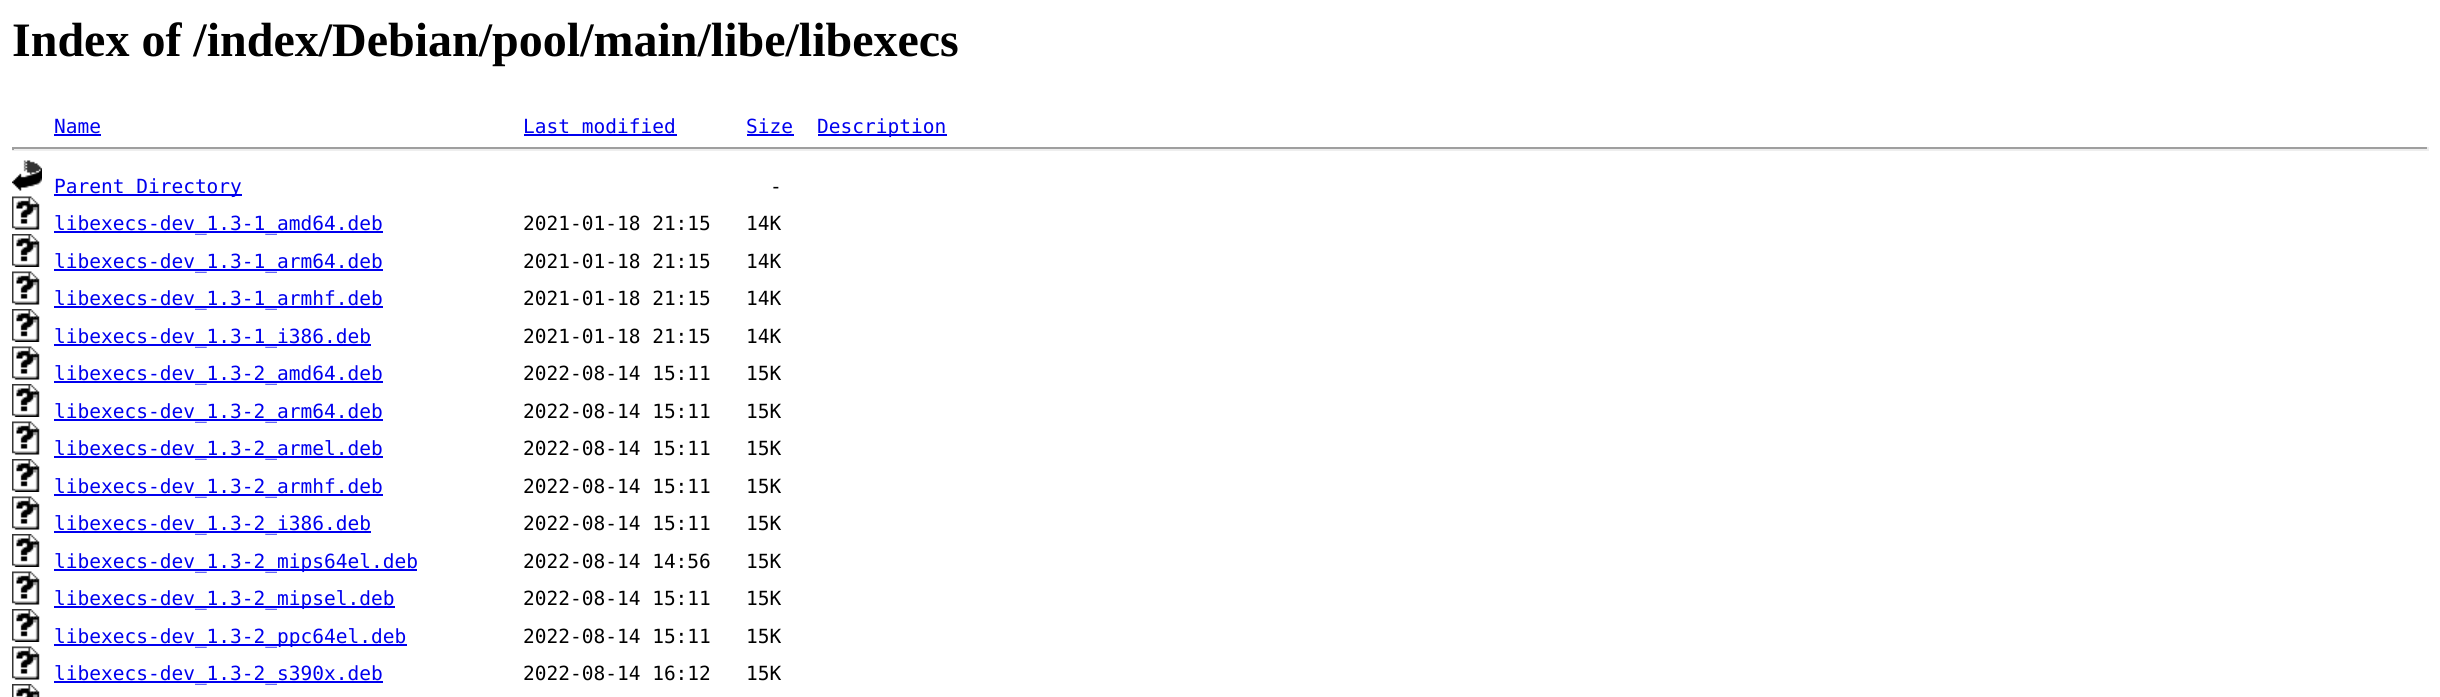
import math
import cairo

surface = cairo.ImageSurface(cairo.FORMAT_RGB24, 2440, 697)
ctx = cairo.Context(surface)
options = cairo.FontOptions()
options.set_hint_metrics(cairo.HINT_METRICS_OFF)
options.set_hint_style(cairo.HINT_STYLE_NONE)
ctx.set_font_options(options)
ctx.set_miter_limit(4)


def set_color(code):
    ctx.set_source_rgb(*(v / 255 for v in bytes.fromhex(code[-6:])))


def draw_text(x, y, s, family, size, color, bold=False, italic=False):
    ctx.select_font_face(family, cairo.FONT_SLANT_ITALIC if italic else cairo.FONT_SLANT_NORMAL, cairo.FONT_WEIGHT_BOLD if bold else cairo.FONT_WEIGHT_NORMAL)
    ctx.set_font_size(size)
    set_color(color)
    ctx.move_to(x, y)
    ctx.show_text(s)


def fill_rect(x, y, w, h, color):
    set_color(color)
    ctx.rectangle(x, y, w, h)
    ctx.fill()


def draw_image(path, x, y, w, h):
    ctx.save()
    ctx.set_source_surface(cairo.ImageSurface.create_from_png(path), x, y)
    ctx.rectangle(x, y, w, h)
    ctx.fill()
    ctx.restore()


set_color("#ffffff")
ctx.paint()
draw_text(12, 56, "Index of /index/Debian/pool/main/libe/libexecs", "Liberation Serif", 48, "#000000", bold=True)
draw_text(54, 133, "Name", "DejaVu Sans Mono", 19.5, "#0000ee")
fill_rect(54, 134, 47, 2, "#0000ee")
draw_text(523, 133, "Last modified", "DejaVu Sans Mono", 19.5, "#0000ee")
fill_rect(524, 134, 153, 2, "#0000ee")
draw_text(746, 133, "Size", "DejaVu Sans Mono", 19.5, "#0000ee")
fill_rect(747, 134, 47, 2, "#0000ee")
fill_rect(818, 134, 129, 2, "#0000ee")
draw_text(817, 133, "Description", "DejaVu Sans Mono", 19.5, "#0000ee")
fill_rect(12, 147, 2417, 2, "#9f9f9f")
fill_rect(2427, 147, 2, 3, "#eeeeee")
fill_rect(12, 149, 2417, 2, "#eeeeee")
fill_rect(12, 147, 2, 3, "#9f9f9f")
draw_image("assets/img1.png", 12, 160, 30, 31)
fill_rect(54, 194, 188, 2, "#0000ee")
draw_text(54, 193, "Parent Directory", "DejaVu Sans Mono", 19.5, "#0000ee")
draw_text(770, 193, "-", "DejaVu Sans Mono", 19.5, "#000000")
draw_image("assets/img2.png", 12, 196, 28, 34)
fill_rect(54, 231, 329, 2, "#0000ee")
draw_text(54, 230, "libexecs-dev_1.3-1_amd64.deb", "DejaVu Sans Mono", 19.5, "#0000ee")
draw_text(523, 230, "2021-01-18 21:15   14K", "DejaVu Sans Mono", 19.5, "#000000")
draw_image("assets/img3.png", 12, 234, 28, 33)
fill_rect(54, 269, 329, 2, "#0000ee")
draw_text(54, 268, "libexecs-dev_1.3-1_arm64.deb", "DejaVu Sans Mono", 19.5, "#0000ee")
draw_text(523, 268, "2021-01-18 21:15   14K", "DejaVu Sans Mono", 19.5, "#000000")
draw_image("assets/img2.png", 12, 271, 28, 34)
fill_rect(54, 306, 329, 2, "#0000ee")
draw_text(54, 305, "libexecs-dev_1.3-1_armhf.deb", "DejaVu Sans Mono", 19.5, "#0000ee")
draw_text(523, 305, "2021-01-18 21:15   14K", "DejaVu Sans Mono", 19.5, "#000000")
draw_image("assets/img3.png", 12, 309, 28, 33)
fill_rect(54, 344, 317, 2, "#0000ee")
draw_text(54, 343, "libexecs-dev_1.3-1_i386.deb", "DejaVu Sans Mono", 19.5, "#0000ee")
draw_text(523, 343, "2021-01-18 21:15   14K", "DejaVu Sans Mono", 19.5, "#000000")
draw_image("assets/img2.png", 12, 346, 28, 34)
fill_rect(54, 381, 329, 2, "#0000ee")
draw_text(54, 380, "libexecs-dev_1.3-2_amd64.deb", "DejaVu Sans Mono", 19.5, "#0000ee")
draw_text(523, 380, "2022-08-14 15:11   15K", "DejaVu Sans Mono", 19.5, "#000000")
draw_image("assets/img3.png", 12, 384, 28, 33)
fill_rect(54, 419, 329, 2, "#0000ee")
draw_text(54, 418, "libexecs-dev_1.3-2_arm64.deb", "DejaVu Sans Mono", 19.5, "#0000ee")
draw_text(523, 418, "2022-08-14 15:11   15K", "DejaVu Sans Mono", 19.5, "#000000")
draw_image("assets/img2.png", 12, 421, 28, 34)
fill_rect(54, 456, 329, 2, "#0000ee")
draw_text(54, 455, "libexecs-dev_1.3-2_armel.deb", "DejaVu Sans Mono", 19.5, "#0000ee")
draw_text(523, 455, "2022-08-14 15:11   15K", "DejaVu Sans Mono", 19.5, "#000000")
draw_image("assets/img3.png", 12, 459, 28, 33)
fill_rect(54, 494, 329, 2, "#0000ee")
draw_text(54, 493, "libexecs-dev_1.3-2_armhf.deb", "DejaVu Sans Mono", 19.5, "#0000ee")
draw_text(523, 493, "2022-08-14 15:11   15K", "DejaVu Sans Mono", 19.5, "#000000")
draw_image("assets/img2.png", 12, 496, 28, 34)
fill_rect(54, 531, 317, 2, "#0000ee")
draw_text(54, 530, "libexecs-dev_1.3-2_i386.deb", "DejaVu Sans Mono", 19.5, "#0000ee")
draw_text(523, 530, "2022-08-14 15:11   15K", "DejaVu Sans Mono", 19.5, "#000000")
draw_image("assets/img3.png", 12, 534, 28, 33)
fill_rect(54, 569, 363, 2, "#0000ee")
draw_text(54, 568, "libexecs-dev_1.3-2_mips64el.deb", "DejaVu Sans Mono", 19.5, "#0000ee")
draw_text(523, 568, "2022-08-14 14:56   15K", "DejaVu Sans Mono", 19.5, "#000000")
draw_image("assets/img2.png", 12, 571, 28, 34)
fill_rect(54, 606, 341, 2, "#0000ee")
draw_text(54, 605, "libexecs-dev_1.3-2_mipsel.deb", "DejaVu Sans Mono", 19.5, "#0000ee")
draw_text(523, 605, "2022-08-14 15:11   15K", "DejaVu Sans Mono", 19.5, "#000000")
draw_image("assets/img3.png", 12, 609, 28, 33)
fill_rect(54, 644, 353, 2, "#0000ee")
draw_text(54, 643, "libexecs-dev_1.3-2_ppc64el.deb", "DejaVu Sans Mono", 19.5, "#0000ee")
draw_text(523, 643, "2022-08-14 15:11   15K", "DejaVu Sans Mono", 19.5, "#000000")
draw_image("assets/img2.png", 12, 646, 28, 34)
fill_rect(54, 681, 329, 2, "#0000ee")
draw_text(54, 680, "libexecs-dev_1.3-2_s390x.deb", "DejaVu Sans Mono", 19.5, "#0000ee")
draw_text(523, 680, "2022-08-14 16:12   15K", "DejaVu Sans Mono", 19.5, "#000000")
draw_image("assets/img4.png", 12, 684, 28, 13)
surface.write_to_png("output.png")
